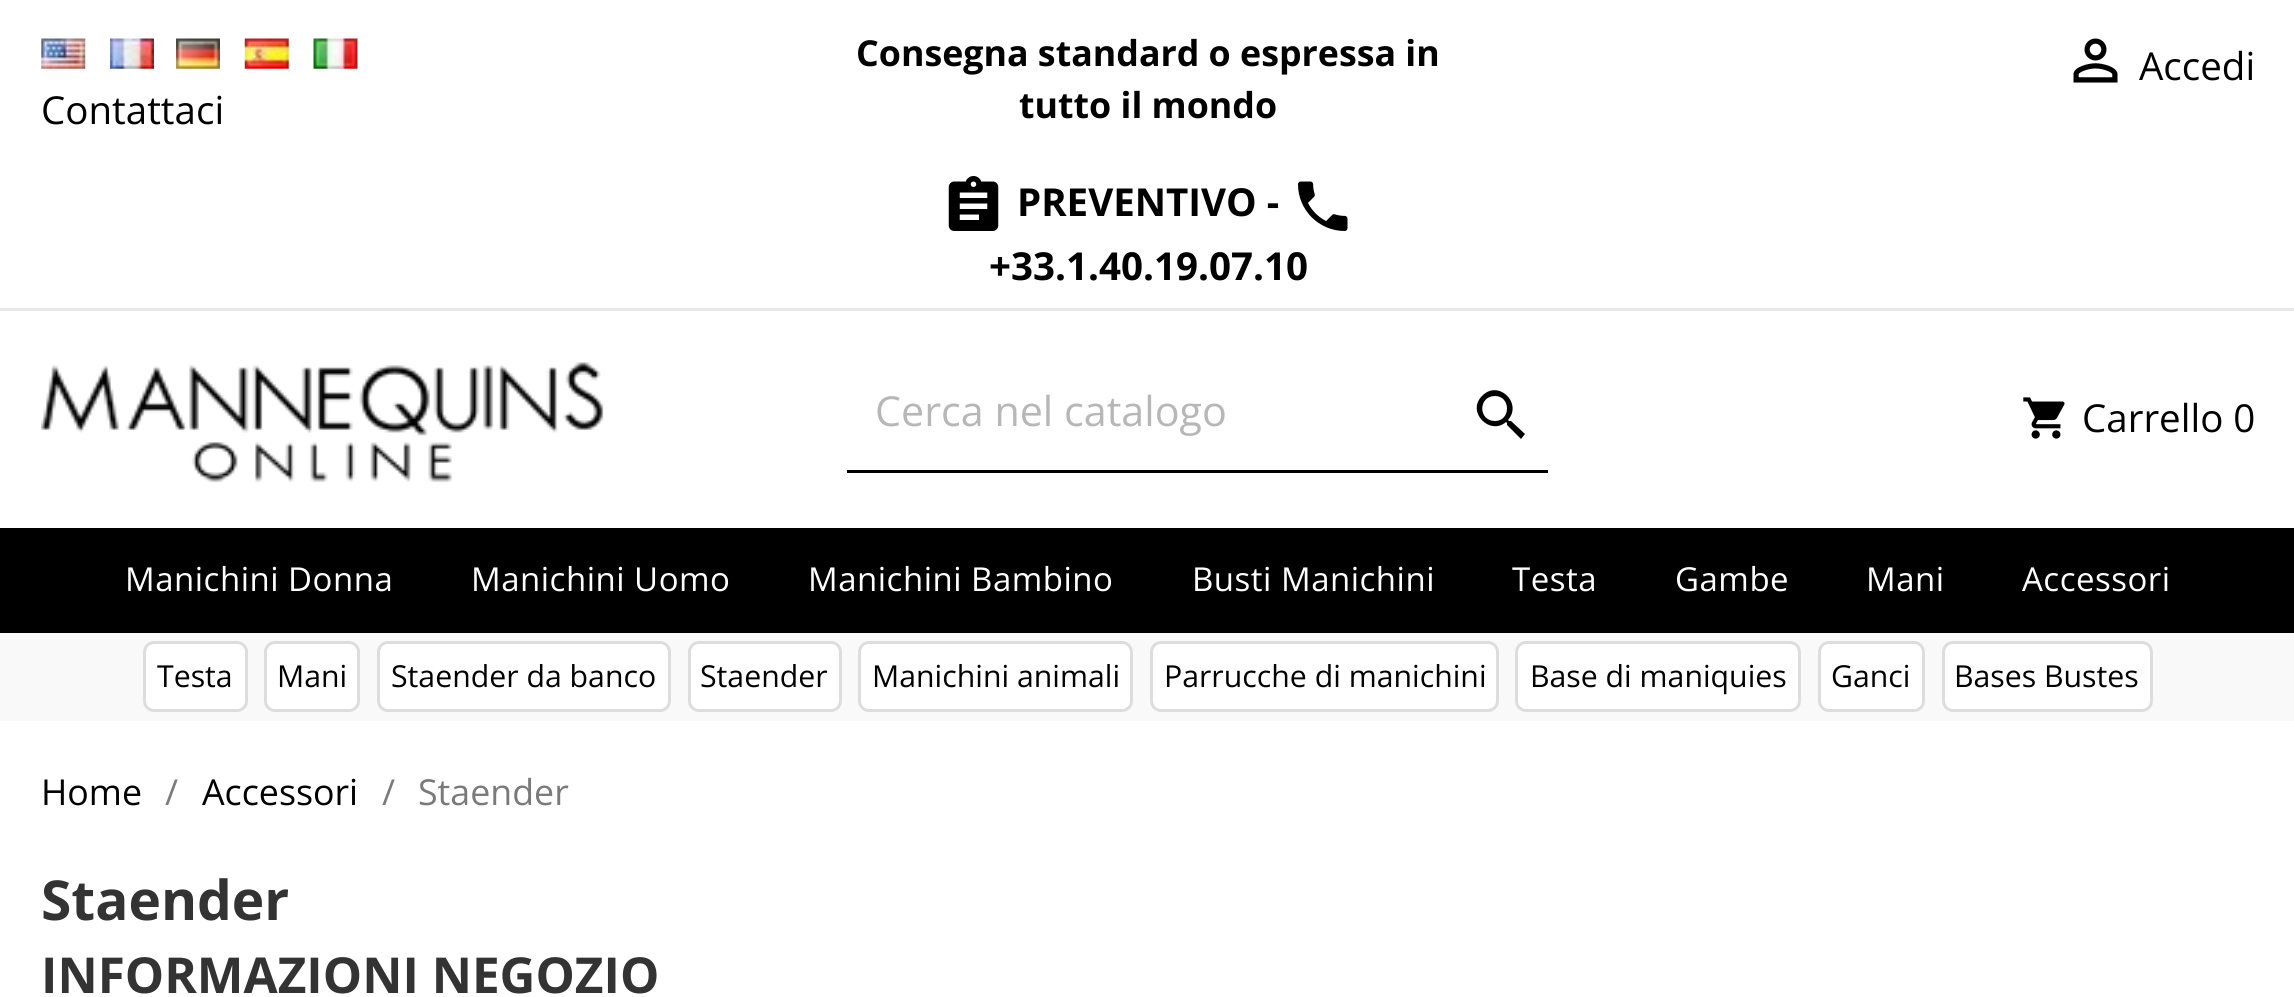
import math
import cairo

surface = cairo.ImageSurface(cairo.FORMAT_RGB24, 2294, 997)
ctx = cairo.Context(surface)
options = cairo.FontOptions()
options.set_hint_metrics(cairo.HINT_METRICS_OFF)
options.set_hint_style(cairo.HINT_STYLE_NONE)
ctx.set_font_options(options)
ctx.set_miter_limit(4)


def set_color(code):
    ctx.set_source_rgb(*(v / 255 for v in bytes.fromhex(code[-6:])))


def draw_text(x, y, s, family, size, color, bold=False, italic=False):
    ctx.select_font_face(family, cairo.FONT_SLANT_ITALIC if italic else cairo.FONT_SLANT_NORMAL, cairo.FONT_WEIGHT_BOLD if bold else cairo.FONT_WEIGHT_NORMAL)
    ctx.set_font_size(size)
    set_color(color)
    ctx.move_to(x, y)
    ctx.show_text(s)


def draw_spaced(x, y, s, letter, word):
    ctx.move_to(x, y)
    for ch in s:
        ctx.show_text(ch)
        ctx.rel_move_to(letter + word * (ch == ' '), 0)


def fill_rect(x, y, w, h, color):
    set_color(color)
    ctx.rectangle(x, y, w, h)
    ctx.fill()


def rounded_rect(x, y, w, h, r):
    ctx.new_sub_path()
    for i, (u, v) in enumerate([(x + w - r, y + h - r), (x + r, y + h - r), (x + r, y + r), (x + w - r, y + r)]):
        ctx.arc(u, v, r, i * math.pi / 2, (i + 1) * math.pi / 2)
    ctx.close_path()


def draw_image(path, x, y, w, h):
    ctx.save()
    ctx.set_source_surface(cairo.ImageSurface.create_from_png(path), x, y)
    ctx.rectangle(x, y, w, h)
    ctx.fill()
    ctx.restore()


set_color("#ffffff")
ctx.paint()
fill_rect(0, 308, 2294, 3, "#e8e8e8")
draw_text(856, 66, "Consegna standard o espressa in", "Open Sans", 35.75, "#000000", bold=True)
draw_text(1019, 118, "tutto il mondo", "Open Sans", 35.75, "#000000", bold=True)
draw_image("assets/img1.png", 948, 176, 51, 55)
draw_text(1017, 216, "PREVENTIVO -", "Open Sans", 38.5, "#000000", bold=True)
draw_image("assets/img2.png", 1298, 181, 50, 50)
draw_text(989, 280, "+33.1.40.19.07.10", "Open Sans", 38.5, "#000000", bold=True)
draw_image("assets/img3.png", 2073, 38, 45, 45)
draw_text(2139, 80, "Accedi", "Open Sans", 38.5, "#000000")
draw_image("assets/img4.png", 41, 38, 45, 31)
draw_image("assets/img5.png", 110, 38, 44, 31)
draw_image("assets/img6.png", 176, 38, 44, 31)
draw_image("assets/img7.png", 244, 38, 45, 31)
draw_image("assets/img8.png", 313, 38, 45, 31)
draw_text(41, 124, "Contattaci", "Open Sans", 38.5, "#000000")
draw_image("assets/img9.png", 41, 362, 563, 121)
fill_rect(847, 470, 701, 3, "#000000")
draw_text(875, 426, "Cerca nel catalogo", "Open Sans", 41.25, "#b7b7b7")
set_color("#000000")
ctx.new_path()
ctx.move_to(1511, 421)
ctx.line_to(1509, 421)
ctx.line_to(1508, 420)
ctx.curve_to(1523, 403, 1498, 379, 1482, 396)
ctx.curve_to(1466, 412, 1490, 436, 1506, 422)
ctx.line_to(1507, 423)
ctx.line_to(1507, 425)
ctx.line_to(1521, 439)
ctx.line_to(1525, 434)
ctx.close_path()
ctx.move_to(1495, 421)
ctx.curve_to(1478, 421, 1478, 396, 1495, 396)
ctx.curve_to(1511, 396, 1511, 421, 1495, 421)
ctx.close_path()
ctx.fill()
draw_image("assets/img10.png", 2023, 397, 42, 42)
draw_text(2082, 432, "Carrello 0", "Open Sans", 38.5, "#000000")
fill_rect(0, 528, 2294, 105, "#000000")
ctx.set_font_size(33)
set_color("#ffffff")
draw_spaced(125, 591, "Manichini Donna", 0.5, 0)
draw_spaced(471, 591, "Manichini Uomo", 0.5, 0)
draw_spaced(808, 591, "Manichini Bambino", 0.5, 0)
draw_spaced(1192, 591, "Busti Manichini", 0.5, 0)
draw_spaced(1512, 591, "Testa", 0.5, 0)
draw_spaced(1675, 591, "Gambe", 0.5, 0)
draw_spaced(1866, 591, "Mani", 0.5, 0)
draw_spaced(2022, 591, "Accessori", 0.5, 0)
fill_rect(0, 633, 2294, 88, "#f9f9f9")
set_color("#ffffff")
rounded_rect(144.5, 642.5, 102, 68, 9.5)
ctx.fill_preserve()
set_color("#dddddd")
ctx.set_line_width(3)
ctx.stroke()
draw_text(157, 687, "Testa", "Open Sans", 30.25, "#000000")
set_color("#ffffff")
rounded_rect(265.5, 642.5, 93, 68, 9.5)
ctx.fill_preserve()
set_color("#dddddd")
ctx.stroke()
draw_text(277, 687, "Mani", "Open Sans", 30.25, "#000000")
set_color("#ffffff")
rounded_rect(378.5, 642.5, 291, 68, 9.5)
ctx.fill_preserve()
set_color("#dddddd")
ctx.stroke()
draw_text(391, 687, "Staender da banco", "Open Sans", 30.25, "#000000")
set_color("#ffffff")
rounded_rect(689.5, 642.5, 151, 68, 9.5)
ctx.fill_preserve()
set_color("#dddddd")
ctx.stroke()
draw_text(700, 687, "Staender", "Open Sans", 30.25, "#000000")
set_color("#ffffff")
rounded_rect(859.5, 642.5, 272, 68, 9.5)
ctx.fill_preserve()
set_color("#dddddd")
ctx.stroke()
draw_text(872, 687, "Manichini animali", "Open Sans", 30.25, "#000000")
set_color("#ffffff")
rounded_rect(1151.5, 642.5, 346, 68, 9.5)
ctx.fill_preserve()
set_color("#dddddd")
ctx.stroke()
draw_text(1164, 687, "Parrucche di manichini", "Open Sans", 30.25, "#000000")
set_color("#ffffff")
rounded_rect(1516.5, 642.5, 283, 68, 9.5)
ctx.fill_preserve()
set_color("#dddddd")
ctx.stroke()
draw_text(1530, 687, "Base di maniquies", "Open Sans", 30.25, "#000000")
set_color("#ffffff")
rounded_rect(1819.5, 642.5, 104, 68, 9.5)
ctx.fill_preserve()
set_color("#dddddd")
ctx.stroke()
draw_text(1831, 687, "Ganci", "Open Sans", 30.25, "#000000")
set_color("#ffffff")
rounded_rect(1943.5, 642.5, 208, 68, 9.5)
ctx.fill_preserve()
set_color("#dddddd")
ctx.stroke()
draw_text(1954, 687, "Bases Bustes", "Open Sans", 30.25, "#000000")
draw_text(41, 805, "Home", "Open Sans", 35.75, "#000000")
draw_text(165, 805, "/", "Open Sans", 35.75, "#7a7a7a")
draw_text(202, 805, "Accessori", "Open Sans", 35.75, "#000000")
draw_text(382, 805, "/", "Open Sans", 35.75, "#7a7a7a")
draw_text(418, 805, "Staender", "Open Sans", 35.75, "#7a7a7a")
draw_text(41, 920, "Staender", "Open Sans", 55, "#333333", bold=True)
draw_text(41, 993, "INFORMAZIONI NEGOZIO", "Open Sans", 49.5, "#333333", bold=True)
surface.write_to_png("output.png")
